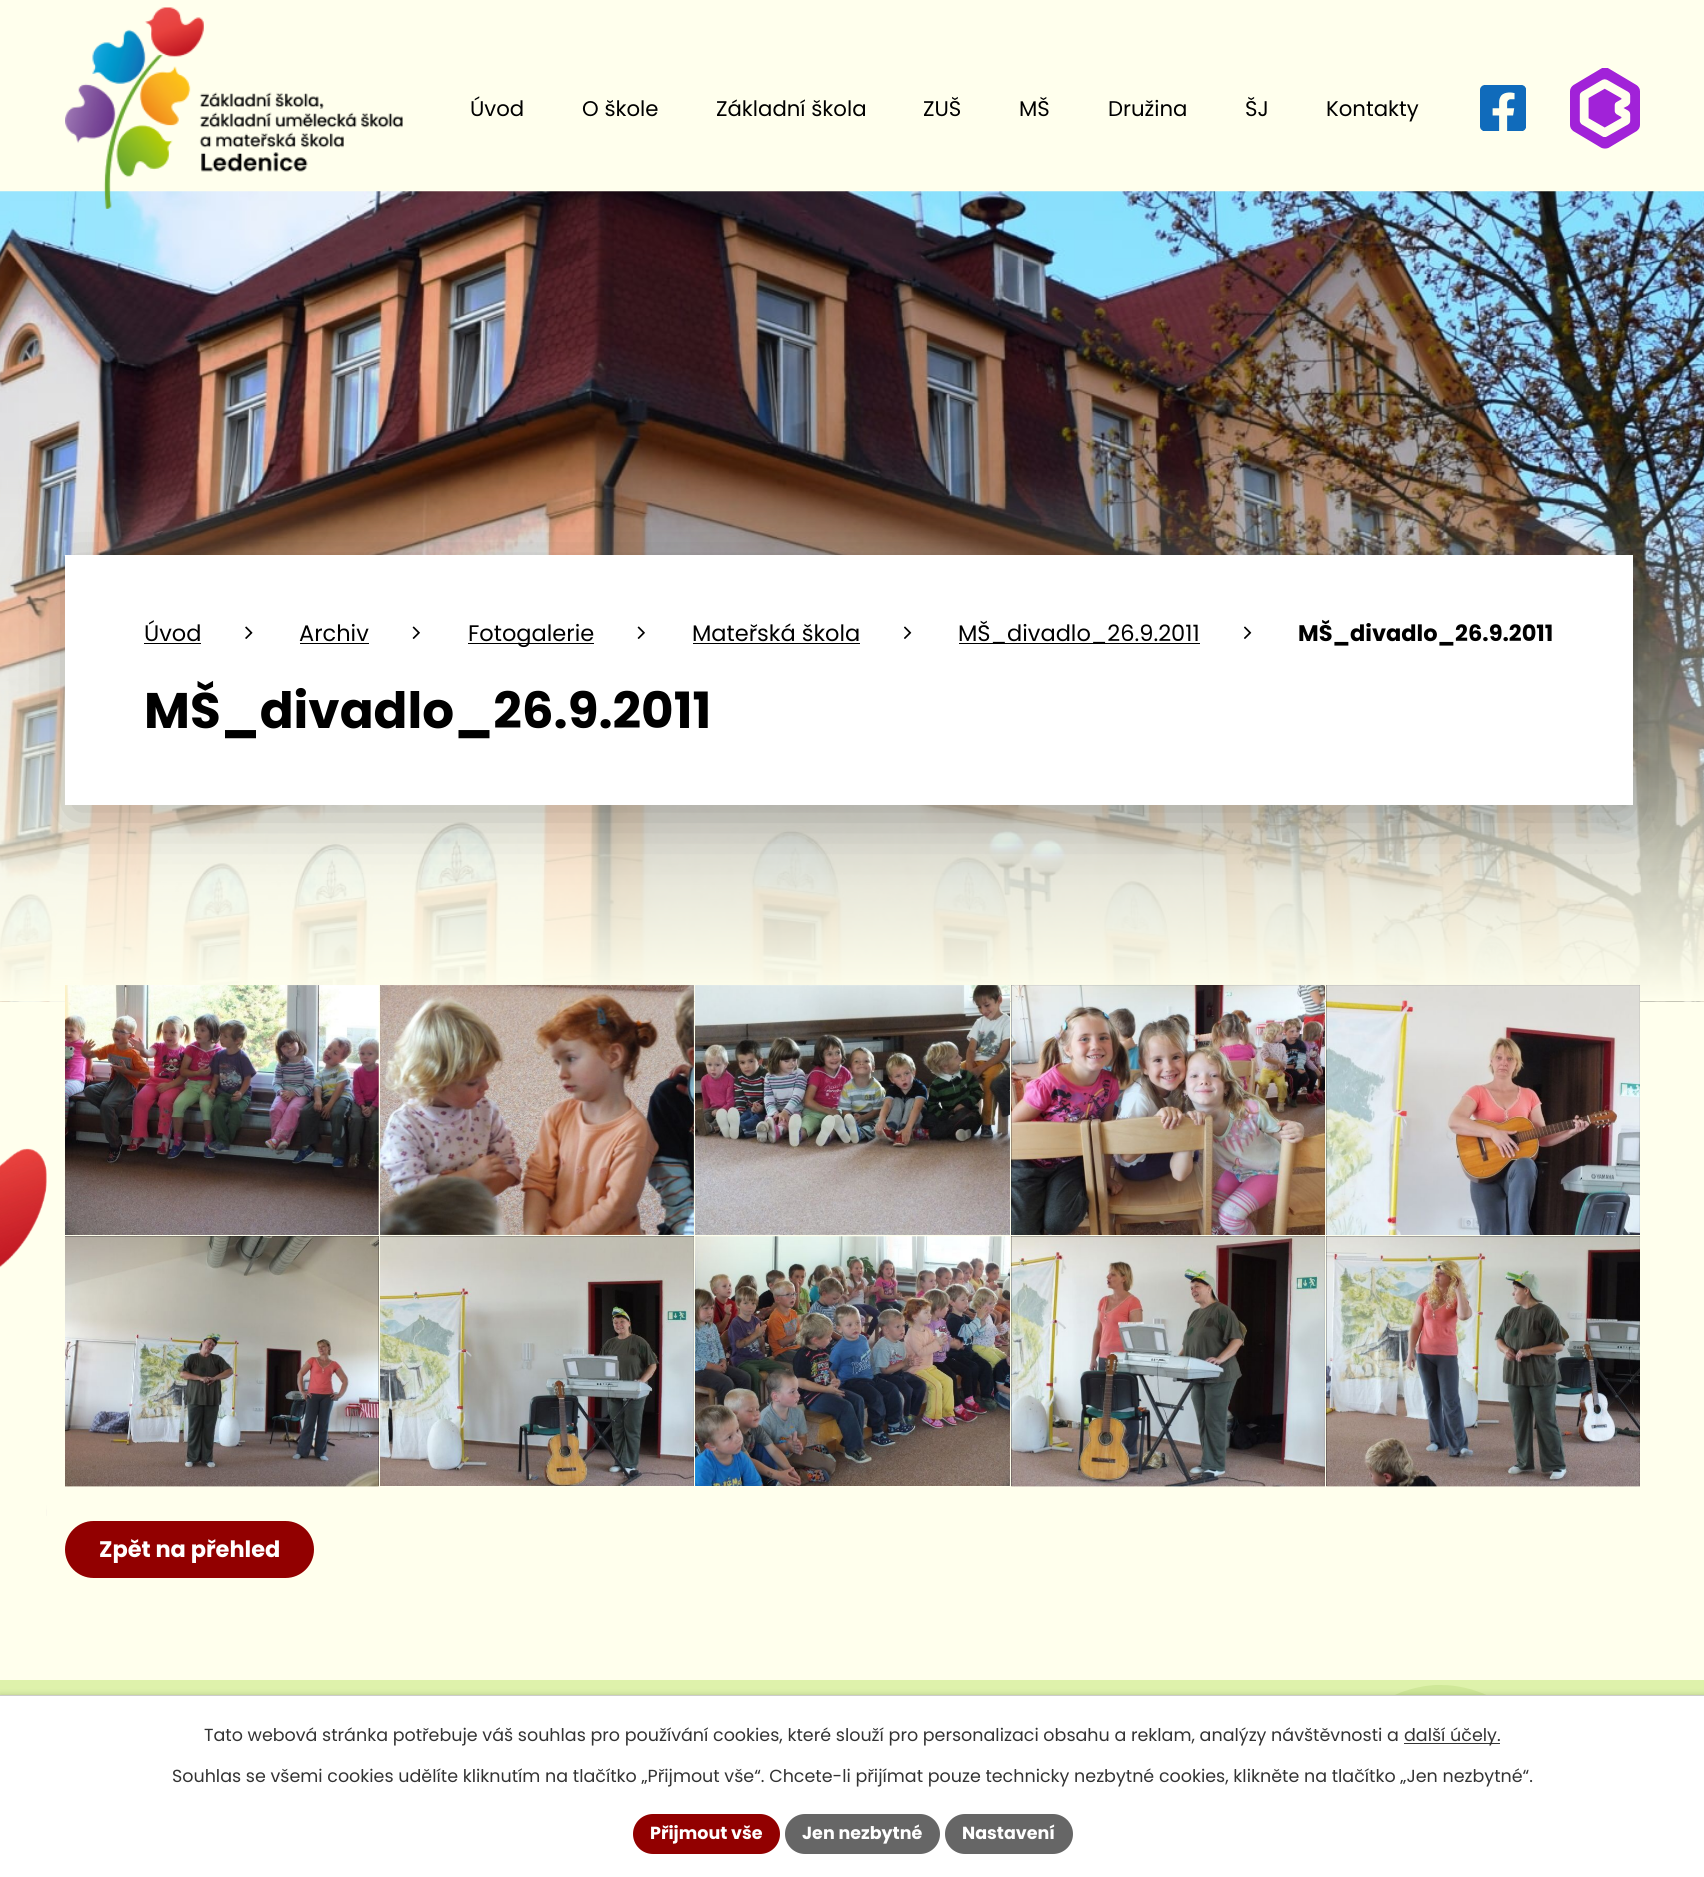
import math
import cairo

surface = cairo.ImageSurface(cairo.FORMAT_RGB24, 1704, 1877)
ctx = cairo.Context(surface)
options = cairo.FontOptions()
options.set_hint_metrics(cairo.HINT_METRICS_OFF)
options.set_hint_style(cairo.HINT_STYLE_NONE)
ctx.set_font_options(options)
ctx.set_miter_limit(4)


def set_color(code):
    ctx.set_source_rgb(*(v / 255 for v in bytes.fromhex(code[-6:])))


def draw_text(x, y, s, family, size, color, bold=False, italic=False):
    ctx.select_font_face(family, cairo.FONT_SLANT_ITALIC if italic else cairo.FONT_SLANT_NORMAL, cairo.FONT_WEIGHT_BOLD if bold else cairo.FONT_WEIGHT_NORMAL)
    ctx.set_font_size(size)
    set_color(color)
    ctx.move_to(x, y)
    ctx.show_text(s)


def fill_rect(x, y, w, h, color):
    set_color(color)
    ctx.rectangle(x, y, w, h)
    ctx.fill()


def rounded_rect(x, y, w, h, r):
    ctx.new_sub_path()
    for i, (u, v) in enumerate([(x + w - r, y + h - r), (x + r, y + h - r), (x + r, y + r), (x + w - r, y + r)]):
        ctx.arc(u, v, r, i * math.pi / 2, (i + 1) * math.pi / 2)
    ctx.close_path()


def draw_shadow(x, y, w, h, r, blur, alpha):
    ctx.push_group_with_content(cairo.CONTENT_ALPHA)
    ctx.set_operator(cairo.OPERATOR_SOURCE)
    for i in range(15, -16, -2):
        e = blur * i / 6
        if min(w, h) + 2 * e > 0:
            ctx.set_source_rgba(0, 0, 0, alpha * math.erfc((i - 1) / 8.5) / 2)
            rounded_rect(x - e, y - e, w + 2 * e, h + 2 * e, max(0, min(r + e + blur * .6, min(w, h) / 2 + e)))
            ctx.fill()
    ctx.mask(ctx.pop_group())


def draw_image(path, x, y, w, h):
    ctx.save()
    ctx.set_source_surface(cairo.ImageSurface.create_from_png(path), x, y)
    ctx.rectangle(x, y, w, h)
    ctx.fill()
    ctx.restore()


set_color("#ffffed")
ctx.paint()
draw_image("assets/img4.png", 0, 191, 1704, 811)
draw_image("assets/img1.png", 65, 7, 338, 202)
draw_image("assets/img2.png", 1480, 85, 46, 46)
draw_image("assets/img3.png", 1570, 68, 70, 81)
draw_text(470, 116, "Úvod", "Poppins", 21.25, "#000000")
draw_text(582, 116, "O škole", "Poppins", 21.25, "#000000")
draw_text(716, 116, "Základní škola", "Poppins", 21.25, "#000000")
draw_text(923, 116, "ZUŠ", "Poppins", 21.25, "#000000")
draw_text(1019, 116, "MŠ", "Poppins", 21.25, "#000000")
draw_text(1108, 116, "Družina", "Poppins", 21.25, "#000000")
draw_text(1245, 116, "ŠJ", "Poppins", 21.25, "#000000")
draw_text(1326, 116, "Kontakty", "Poppins", 21.25, "#000000")
set_color("#000000")
draw_shadow(65, 568, 1568, 250, 0, 31, 0.25)
fill_rect(65, 555, 1568, 250, "#ffffff")
draw_text(144, 641, "Úvod", "Poppins", 22.5, "#000000")
fill_rect(144, 643, 57, 1, "#000000")
draw_image("assets/img5.png", 245, 626, 8, 13)
draw_text(299, 641, "Archiv", "Poppins", 22.5, "#000000")
fill_rect(300, 643, 69, 1, "#000000")
draw_image("assets/img6.png", 412, 626, 8, 13)
fill_rect(468, 643, 126, 1, "#000000")
draw_text(468, 641, "Fotogalerie", "Poppins", 22.5, "#000000")
draw_image("assets/img6.png", 637, 626, 8, 13)
draw_text(692, 641, "Mateřská škola", "Poppins", 22.5, "#000000")
fill_rect(693, 643, 167, 1, "#000000")
draw_image("assets/img7.png", 904, 626, 8, 13)
fill_rect(959, 643, 241, 1, "#000000")
draw_text(958, 641, "MŠ_divadlo_26.9.2011", "Poppins", 22.5, "#000000")
draw_image("assets/img7.png", 1244, 626, 8, 13)
draw_text(1298, 641, "MŠ_divadlo_26.9.2011", "Poppins", 22.5, "#000000", bold=True)
draw_text(144, 728, "MŠ_divadlo_26.9.2011", "Poppins", 50, "#000000", bold=True)
draw_image("assets/img8.png", 65, 985, 314, 250)
draw_image("assets/img9.png", 380, 985, 314, 250)
draw_image("assets/img10.png", 695, 985, 315, 250)
fill_rect(1011, 985, 314, 250, "#000000")
draw_image("assets/img11.png", 1011, 985, 314, 250)
fill_rect(1326, 985, 314, 250, "#000000")
draw_image("assets/img12.png", 1326, 985, 314, 250)
fill_rect(65, 1236, 314, 250, "#000000")
draw_image("assets/img13.png", 65, 1236, 314, 251)
fill_rect(380, 1236, 314, 250, "#000000")
draw_image("assets/img14.png", 380, 1236, 314, 250)
draw_image("assets/img15.png", 695, 1236, 315, 250)
fill_rect(1011, 1236, 314, 250, "#000000")
draw_image("assets/img16.png", 1011, 1236, 314, 251)
fill_rect(1326, 1236, 314, 250, "#000000")
draw_image("assets/img17.png", 1326, 1236, 314, 251)
set_color("#920000")
rounded_rect(65, 1521, 249, 57, 28.5)
ctx.fill()
draw_text(99, 1557, "Zpět na přehled", "Poppins", 22.5, "#ffffff", bold=True)
draw_image("assets/img18.png", 0, 1148, 47, 368)
fill_rect(0, 1680, 1704, 15, "#def2ab")
draw_image("assets/img19.png", 1395, 1685, 91, 10)
set_color("#000000")
draw_shadow(0, 1695, 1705, 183, 0, 3, 0.2)
fill_rect(0, 1696, 1704, 181, "#ffffff")
fill_rect(0, 1695, 1704, 1, "#cccccc")
draw_text(204, 1741, "Tato webová stránka potřebuje váš souhlas pro používání cookies, které slouží pro personalizaci obsahu a reklam, analýzy návštěvnosti a", "Poppins", 17.5, "#333333")
fill_rect(1404, 1743, 96, 1, "#333333")
draw_text(1404, 1741, "další účely.", "Poppins", 17.5, "#333333")
draw_text(172, 1782, "Souhlas se všemi cookies udělíte kliknutím na tlačítko „Přijmout vše“. Chcete-li přijímat pouze technicky nezbytné cookies, klikněte na tlačítko „Jen nezbytné“.", "Poppins", 17.5, "#333333")
set_color("#920000")
rounded_rect(633, 1814, 147, 40, 20)
ctx.fill()
draw_text(650, 1839, "Přijmout vše", "Poppins", 17.5, "#ffffff", bold=True)
set_color("#666666")
rounded_rect(785, 1814, 155, 40, 20)
ctx.fill()
draw_text(802, 1839, "Jen nezbytné", "Poppins", 17.5, "#ffffff", bold=True)
set_color("#666666")
rounded_rect(945, 1814, 128, 40, 20)
ctx.fill()
draw_text(962, 1839, "Nastavení", "Poppins", 17.5, "#ffffff", bold=True)
surface.write_to_png("output.png")
